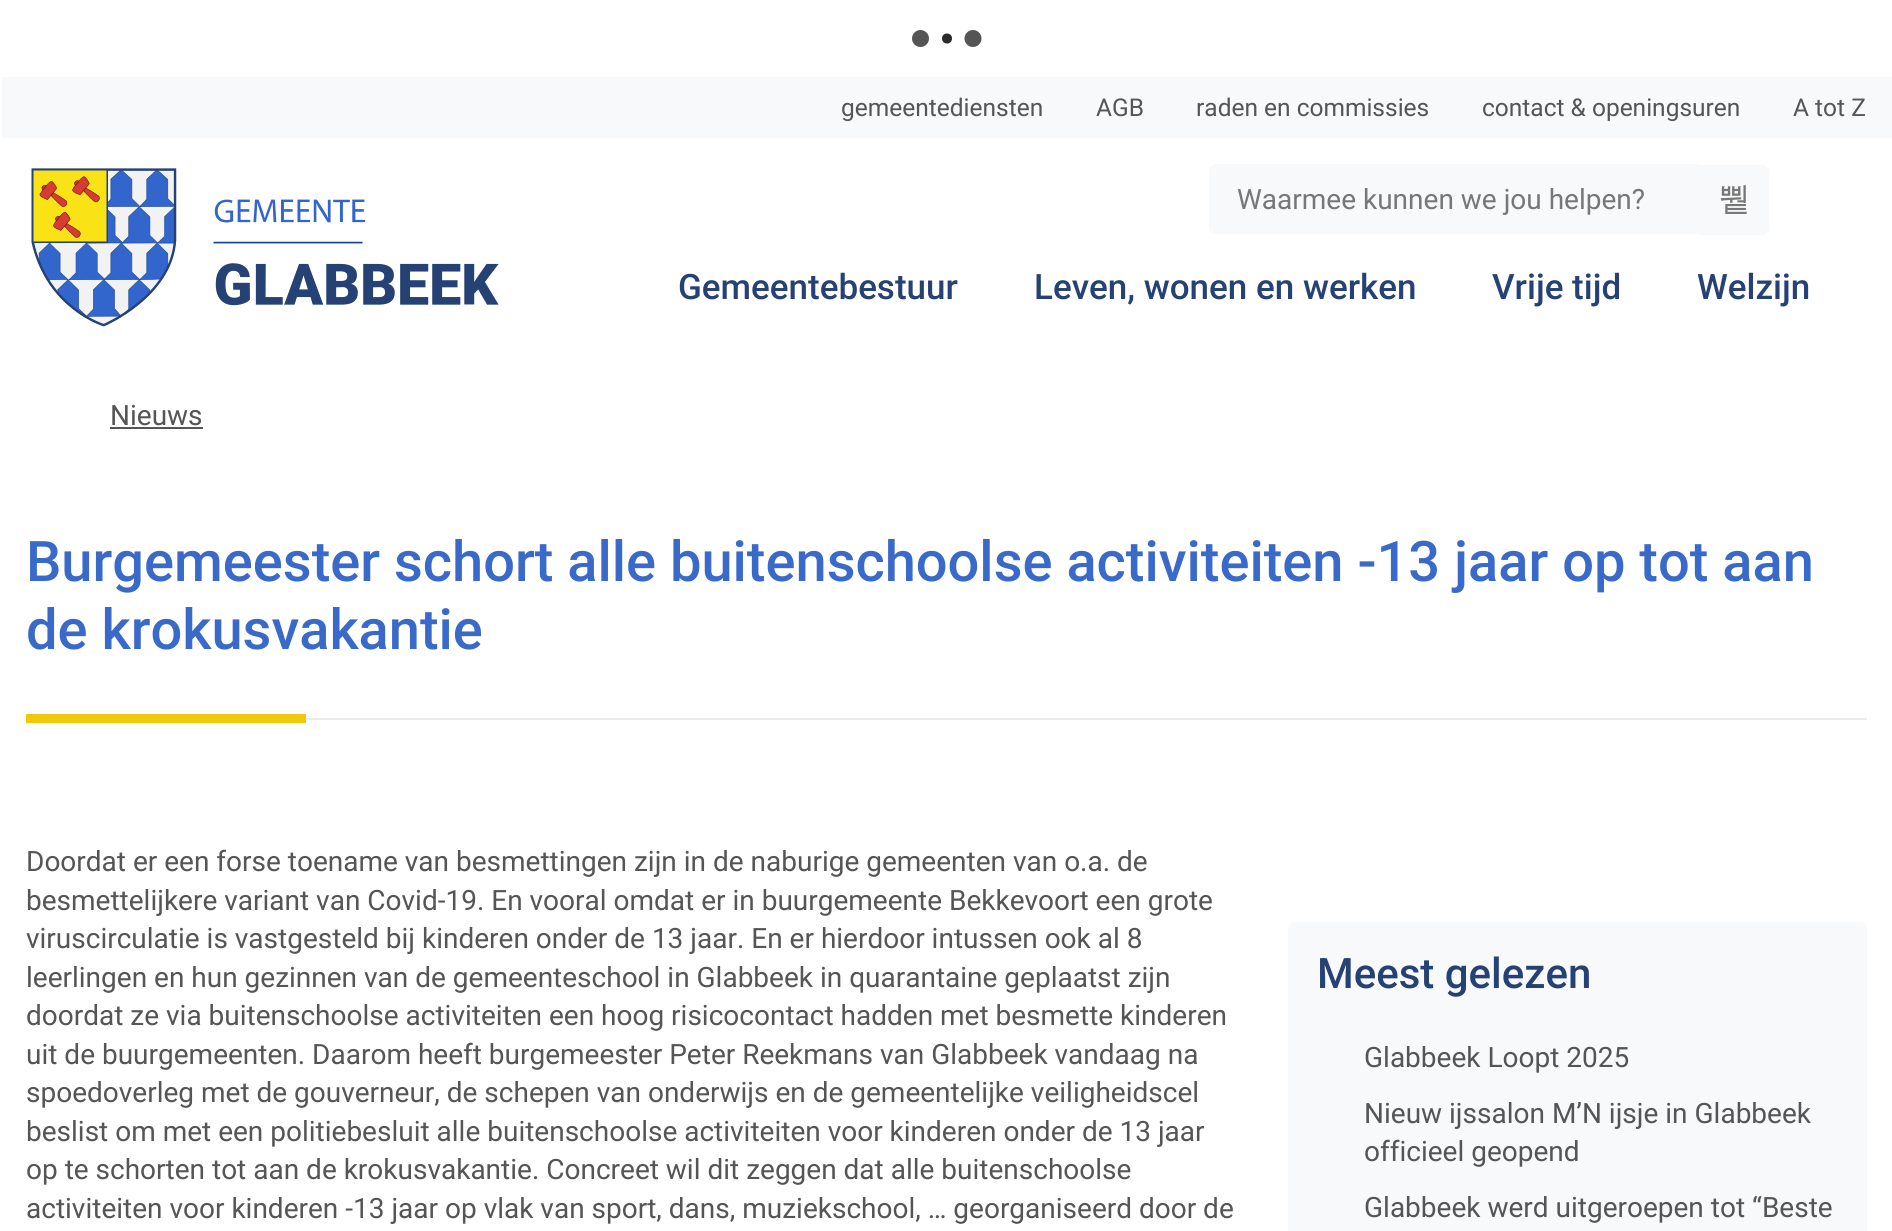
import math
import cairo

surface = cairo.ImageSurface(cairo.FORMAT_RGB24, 1892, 1231)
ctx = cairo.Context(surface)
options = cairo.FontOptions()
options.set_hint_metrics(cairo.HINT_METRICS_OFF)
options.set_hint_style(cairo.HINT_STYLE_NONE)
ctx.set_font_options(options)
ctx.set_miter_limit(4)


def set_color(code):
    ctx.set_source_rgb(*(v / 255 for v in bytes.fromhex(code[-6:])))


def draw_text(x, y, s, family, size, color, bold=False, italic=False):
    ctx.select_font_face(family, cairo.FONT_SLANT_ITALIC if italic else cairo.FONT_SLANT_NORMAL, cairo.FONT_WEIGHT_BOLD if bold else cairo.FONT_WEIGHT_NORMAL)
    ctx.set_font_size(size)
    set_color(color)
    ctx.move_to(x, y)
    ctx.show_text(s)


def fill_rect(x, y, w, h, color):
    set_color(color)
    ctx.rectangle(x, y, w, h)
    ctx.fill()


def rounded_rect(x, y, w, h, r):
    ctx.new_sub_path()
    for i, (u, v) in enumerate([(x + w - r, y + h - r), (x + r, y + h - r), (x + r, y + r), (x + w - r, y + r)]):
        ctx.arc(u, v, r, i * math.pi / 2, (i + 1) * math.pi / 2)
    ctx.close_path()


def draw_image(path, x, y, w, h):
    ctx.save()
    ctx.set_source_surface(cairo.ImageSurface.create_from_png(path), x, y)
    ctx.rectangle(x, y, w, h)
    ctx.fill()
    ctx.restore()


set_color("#ffffff")
ctx.paint()
set_color("#555555")
ctx.arc(920.5, 38.5, 8.5, 0, 2 * math.pi)
ctx.fill()
set_color("#2a2a2a")
ctx.arc(947, 38.5, 5, 0, 2 * math.pi)
ctx.fill()
set_color("#555555")
ctx.arc(973, 38.5, 8.5, 0, 2 * math.pi)
ctx.fill()
draw_image("assets/img1.png", 31, 168, 468, 159)
fill_rect(2, 77, 1890, 61, "#f8f9fa")
draw_text(841, 116, "gemeentediensten", "Roboto", 24.5, "#555555")
draw_text(1096, 116, "AGB", "Roboto", 24.5, "#555555")
draw_text(1196, 116, "raden en commissies", "Roboto", 24.5, "#555555")
draw_text(1482, 116, "contact & openingsuren", "Roboto", 24.5, "#555555")
draw_text(1793, 116, "A tot Z", "Roboto", 24.5, "#555555")
draw_text(678, 299, "Gemeentebestuur", "Roboto Medium", 35, "#264275")
draw_text(1034, 299, "Leven, wonen en werken", "Roboto Medium", 35, "#264275")
draw_text(1492, 299, "Vrije tijd", "Roboto Medium", 35, "#264275")
draw_text(1697, 299, "Welzijn", "Roboto Medium", 35, "#264275")
set_color("#f8f9fa")
ctx.new_path()
ctx.move_to(1216, 166)
ctx.line_to(1699, 166)
ctx.line_to(1699, 233)
ctx.line_to(1216, 233)
ctx.curve_to(1213, 233, 1211, 231, 1211, 228)
ctx.line_to(1211, 171)
ctx.curve_to(1211, 168, 1213, 166, 1216, 166)
ctx.close_path()
ctx.fill()
ctx.set_fill_rule(cairo.FILL_RULE_EVEN_ODD)
ctx.new_path()
ctx.move_to(1216, 164)
ctx.line_to(1699, 164)
ctx.line_to(1699, 234)
ctx.line_to(1216, 234)
ctx.curve_to(1212, 234, 1209, 231, 1209, 228)
ctx.line_to(1209, 172)
ctx.curve_to(1209, 168, 1212, 164, 1216, 164)
ctx.close_path()
ctx.move_to(1216, 166)
ctx.line_to(1699, 166)
ctx.line_to(1699, 233)
ctx.line_to(1216, 233)
ctx.curve_to(1213, 233, 1211, 230, 1211, 228)
ctx.line_to(1211, 172)
ctx.curve_to(1211, 169, 1213, 166, 1216, 166)
ctx.close_path()
ctx.fill()
draw_text(1237, 209, "Waarmee kunnen we jou helpen?", "Roboto", 28, "#777777")
set_color("#f8f9fa")
ctx.new_path()
ctx.move_to(1699, 165)
ctx.line_to(1762, 165)
ctx.curve_to(1766, 165, 1769, 168, 1769, 172)
ctx.line_to(1769, 228)
ctx.curve_to(1769, 232, 1766, 235, 1762, 235)
ctx.line_to(1699, 235)
ctx.close_path()
ctx.fill()
draw_text(1718, 210, "쀁", "WenQuanYi Zen Hei Medium", 33, "#777777")
draw_text(110, 425, "Nieuws", "Roboto", 28, "#555555")
fill_rect(110, 427, 93, 2, "#555555")
fill_rect(306, 718, 1561, 2, "#e9ecef")
draw_text(26, 581, "Burgemeester schort alle buitenschoolse activiteiten -13 jaar op tot aan", "Roboto Medium", 56, "#3a6ac9")
draw_text(26, 649, "de krokusvakantie", "Roboto Medium", 56, "#3a6ac9")
fill_rect(26, 714, 280, 9, "#efc90a")
draw_text(26, 871, "Doordat er een forse toename van besmettingen zijn in de naburige gemeenten van o.a. de", "Roboto", 28, "#555555")
draw_text(26, 910, "besmettelijkere variant van Covid-19. En vooral omdat er in buurgemeente Bekkevoort een grote", "Roboto", 28, "#555555")
draw_text(26, 948, "viruscirculatie is vastgesteld bij kinderen onder de 13 jaar. En er hierdoor intussen ook al 8", "Roboto", 28, "#555555")
draw_text(26, 987, "leerlingen en hun gezinnen van de gemeenteschool in Glabbeek in quarantaine geplaatst zijn", "Roboto", 28, "#555555")
draw_text(26, 1025, "doordat ze via buitenschoolse activiteiten een hoog risicocontact hadden met besmette kinderen", "Roboto", 28, "#555555")
draw_text(26, 1064, "uit de buurgemeenten. Daarom heeft burgemeester Peter Reekmans van Glabbeek vandaag na", "Roboto", 28, "#555555")
draw_text(26, 1102, "spoedoverleg met de gouverneur, de schepen van onderwijs en de gemeentelijke veiligheidscel", "Roboto", 28, "#555555")
draw_text(26, 1141, "beslist om met een politiebesluit alle buitenschoolse activiteiten voor kinderen onder de 13 jaar", "Roboto", 28, "#555555")
draw_text(26, 1179, "op te schorten tot aan de krokusvakantie. Concreet wil dit zeggen dat alle buitenschoolse", "Roboto", 28, "#555555")
draw_text(26, 1218, "activiteiten voor kinderen -13 jaar op vlak van sport, dans, muziekschool, … georganiseerd door de", "Roboto", 28, "#555555")
set_color("#f8f9fa")
rounded_rect(1290, 924, 576, 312, 5)
ctx.fill()
rounded_rect(1289, 923, 577, 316, 6)
ctx.stroke()
draw_text(1317, 988, "Meest gelezen", "Roboto Medium", 42, "#264275")
draw_text(1364, 1067, "Glabbeek Loopt 2025", "Roboto", 28, "#555555")
draw_text(1364, 1123, "Nieuw ijssalon M’N ijsje in Glabbeek", "Roboto", 28, "#555555")
draw_text(1364, 1161, "officieel geopend", "Roboto", 28, "#555555")
draw_text(1364, 1217, "Glabbeek werd uitgeroepen tot “Beste", "Roboto", 28, "#555555")
surface.write_to_png("output.png")
